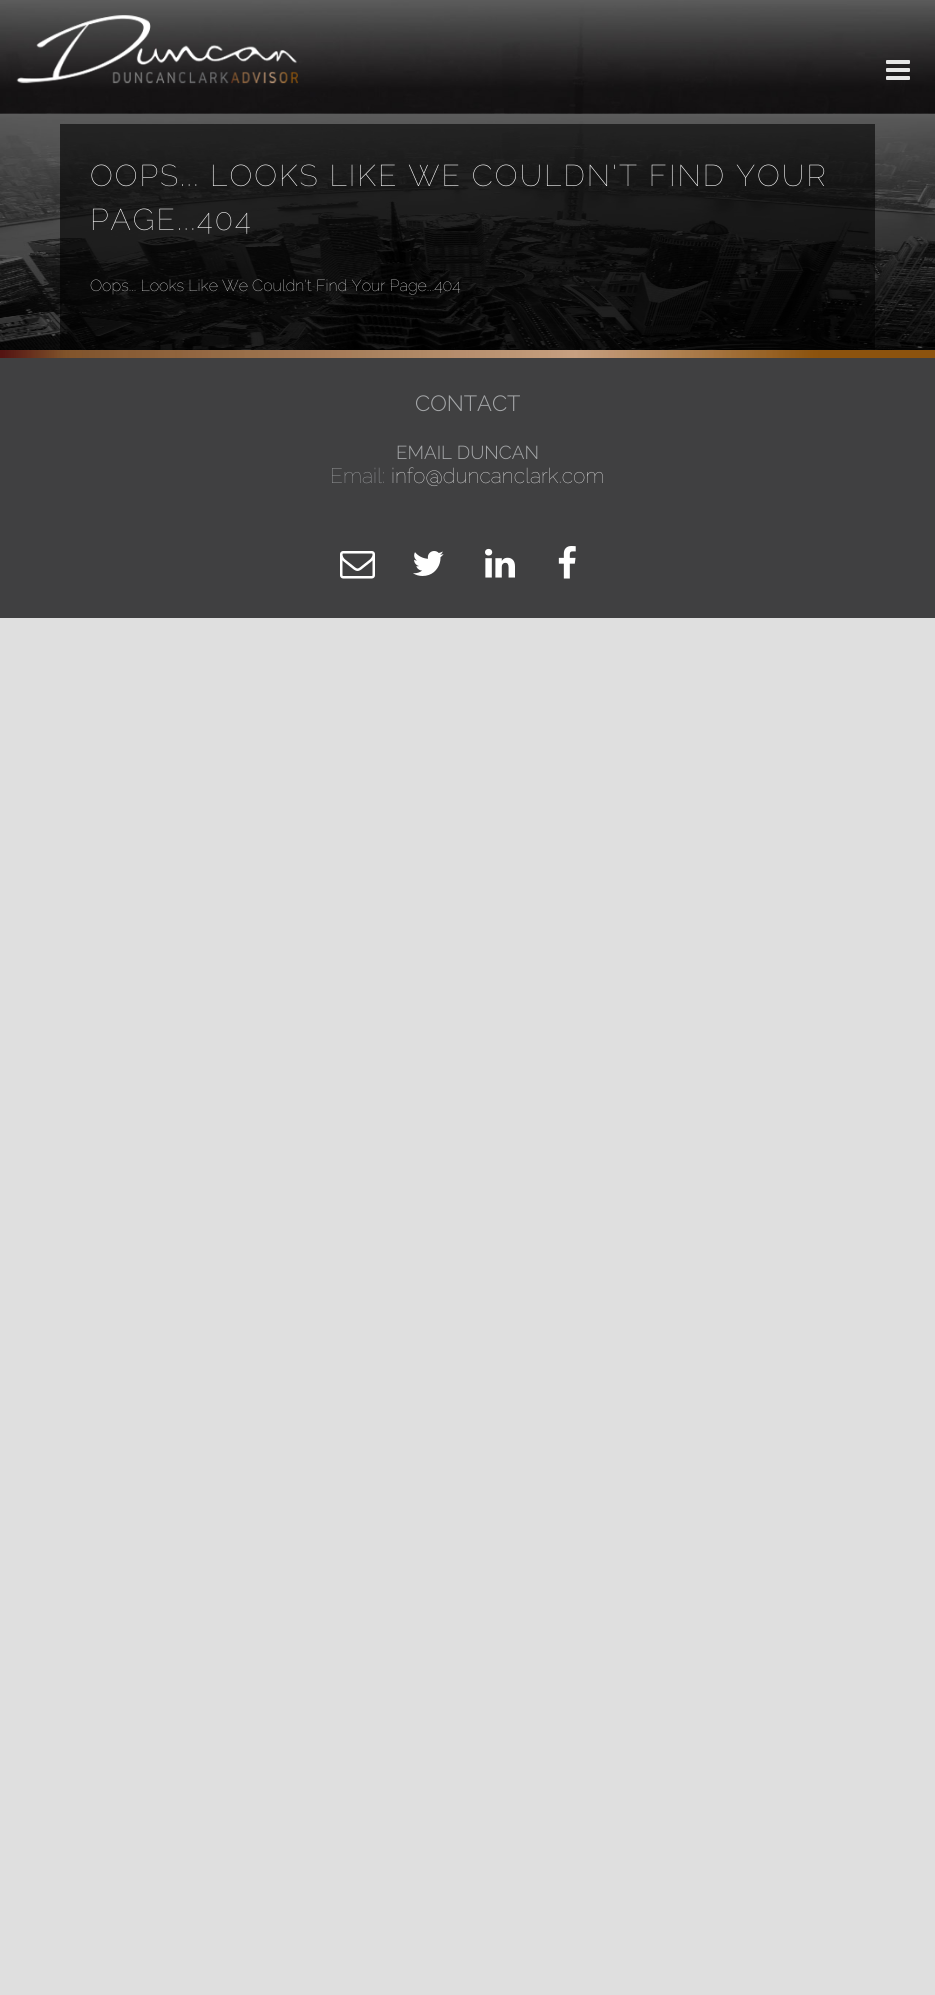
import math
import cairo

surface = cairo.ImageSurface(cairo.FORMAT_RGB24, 935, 1995)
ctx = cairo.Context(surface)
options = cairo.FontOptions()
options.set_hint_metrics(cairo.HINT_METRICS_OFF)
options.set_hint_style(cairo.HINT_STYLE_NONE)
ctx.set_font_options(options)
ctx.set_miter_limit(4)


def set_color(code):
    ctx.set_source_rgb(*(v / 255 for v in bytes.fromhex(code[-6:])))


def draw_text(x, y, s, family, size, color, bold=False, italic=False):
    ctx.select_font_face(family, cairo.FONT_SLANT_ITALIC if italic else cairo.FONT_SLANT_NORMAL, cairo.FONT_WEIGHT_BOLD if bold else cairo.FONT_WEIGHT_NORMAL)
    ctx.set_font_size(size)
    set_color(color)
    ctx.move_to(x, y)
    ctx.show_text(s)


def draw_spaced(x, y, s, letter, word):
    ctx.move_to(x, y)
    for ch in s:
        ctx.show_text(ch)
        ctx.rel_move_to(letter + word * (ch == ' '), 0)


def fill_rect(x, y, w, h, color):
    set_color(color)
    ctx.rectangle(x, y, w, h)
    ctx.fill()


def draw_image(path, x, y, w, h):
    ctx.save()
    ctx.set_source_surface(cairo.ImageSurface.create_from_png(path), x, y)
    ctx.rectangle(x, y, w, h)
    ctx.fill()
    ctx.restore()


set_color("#dfdfdf")
ctx.paint()
draw_image("assets/img1.png", 0, 0, 935, 114)
draw_image("assets/img2.png", 16, 15, 283, 69)
draw_image("assets/img3.png", 886, 60, 24, 20)
draw_image("assets/img4.png", 0, 114, 935, 236)
ctx.set_source_rgba(0, 0, 0, 0.6)
ctx.rectangle(60, 124, 815, 226)
ctx.fill()
ctx.select_font_face("Raleway Thin")
ctx.set_font_size(30)
set_color("#ffffff")
draw_spaced(90, 186, "OOPS... LOOKS LIKE WE COULDN'T FIND YOUR", 2, 0)
draw_spaced(90, 230, "PAGE...404", 2, 0)
draw_text(90, 291, "Oops... Looks Like We Couldn't Find Your Page...404", "Raleway Thin", 16, "#ffffff")
fill_rect(0, 358, 935, 260, "#404041")
draw_image("assets/img5.png", 0, 350, 935, 8)
draw_text(415, 411, "CONTACT", "Raleway Light", 22, "#a4a6a8")
draw_text(396, 459, "EMAIL DUNCAN", "Raleway Light", 18.75, "#a4a6a8")
draw_text(330, 483, "Email:", "Raleway Thin", 21, "#a4a6a8")
draw_text(391, 483, "info@duncanclark.com", "Raleway Thin", 21, "#e6e6e6")
draw_image("assets/img6.png", 340, 551, 35, 28)
draw_image("assets/img7.png", 413, 551, 31, 25)
draw_image("assets/img8.png", 485, 548, 30, 30)
draw_image("assets/img9.png", 558, 546, 18, 33)
surface.write_to_png("output.png")
